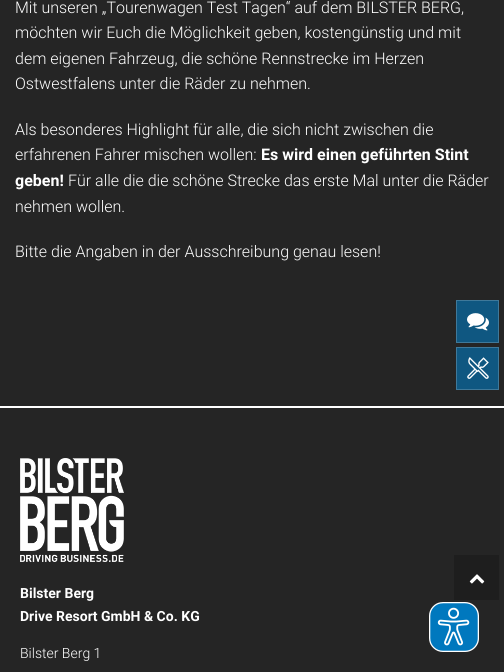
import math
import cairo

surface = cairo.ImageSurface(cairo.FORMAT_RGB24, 504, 672)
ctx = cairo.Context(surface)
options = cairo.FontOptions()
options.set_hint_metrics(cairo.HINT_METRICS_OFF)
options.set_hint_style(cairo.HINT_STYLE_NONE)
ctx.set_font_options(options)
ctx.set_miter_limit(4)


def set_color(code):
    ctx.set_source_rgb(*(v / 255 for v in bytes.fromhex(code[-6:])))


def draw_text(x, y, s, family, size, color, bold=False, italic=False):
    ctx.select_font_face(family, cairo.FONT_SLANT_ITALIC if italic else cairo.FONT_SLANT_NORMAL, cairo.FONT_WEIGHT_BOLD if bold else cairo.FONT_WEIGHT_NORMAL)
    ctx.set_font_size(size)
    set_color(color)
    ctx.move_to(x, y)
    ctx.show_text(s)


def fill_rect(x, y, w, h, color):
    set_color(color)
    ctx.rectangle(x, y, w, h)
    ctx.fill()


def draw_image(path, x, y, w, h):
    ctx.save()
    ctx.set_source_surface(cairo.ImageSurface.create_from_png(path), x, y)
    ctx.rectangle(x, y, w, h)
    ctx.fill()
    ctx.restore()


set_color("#252525")
ctx.paint()
draw_text(15, 13, "Mit unseren „Tourenwagen Test Tagen“ auf dem BILSTER BERG,", "Roboto Light", 16, "#ffffff")
draw_text(15, 38, "möchten wir Euch die Möglichkeit geben, kostengünstig und mit", "Roboto Light", 16, "#ffffff")
draw_text(15, 64, "dem eigenen Fahrzeug, die schöne Rennstrecke im Herzen", "Roboto Light", 16, "#ffffff")
draw_text(15, 89, "Ostwestfalens unter die Räder zu nehmen.", "Roboto Light", 16, "#ffffff")
draw_text(15, 135, "Als besonderes Highlight für alle, die sich nicht zwischen die", "Roboto Light", 16, "#ffffff")
draw_text(15, 160, "erfahrenen Fahrer mischen wollen:", "Roboto Light", 16, "#ffffff")
draw_text(261, 160, "Es wird einen geführten Stint", "Roboto", 16, "#ffffff", bold=True)
draw_text(15, 186, "geben!", "Roboto", 16, "#ffffff", bold=True)
draw_text(68, 186, "Für alle die die schöne Strecke das erste Mal unter die Räder", "Roboto Light", 16, "#ffffff")
draw_text(15, 212, "nehmen wollen.", "Roboto Light", 16, "#ffffff")
draw_text(15, 257, "Bitte die Angaben in der Ausschreibung genau lesen!", "Roboto Light", 16, "#ffffff")
set_color("#0f5781")
ctx.rectangle(456.5, 300.5, 42, 42)
ctx.fill_preserve()
set_color("#3f799a")
ctx.set_line_width(1)
ctx.stroke()
draw_image("assets/img1.png", 467, 313, 22, 18)
set_color("#0f5781")
ctx.rectangle(456.5, 347.5, 42, 42)
ctx.fill_preserve()
set_color("#3f799a")
ctx.stroke()
draw_image("assets/img2.png", 467, 357, 22, 22)
fill_rect(0, 406, 504, 2, "#ffffff")
draw_image("assets/img3.png", 20, 458, 104, 104)
draw_text(20, 598, "Bilster Berg", "Roboto", 14, "#ffffff", bold=True)
draw_text(20, 621, "Drive Resort GmbH & Co. KG", "Roboto", 14, "#ffffff", bold=True)
draw_text(20, 658, "Bilster Berg 1", "Roboto Light", 14, "#ffffff")
fill_rect(454, 555, 45, 45, "#1e1e1e")
draw_image("assets/img4.png", 469, 574, 16, 10)
draw_image("assets/img5.png", 429, 602, 50, 50)
surface.write_to_png("output.png")
